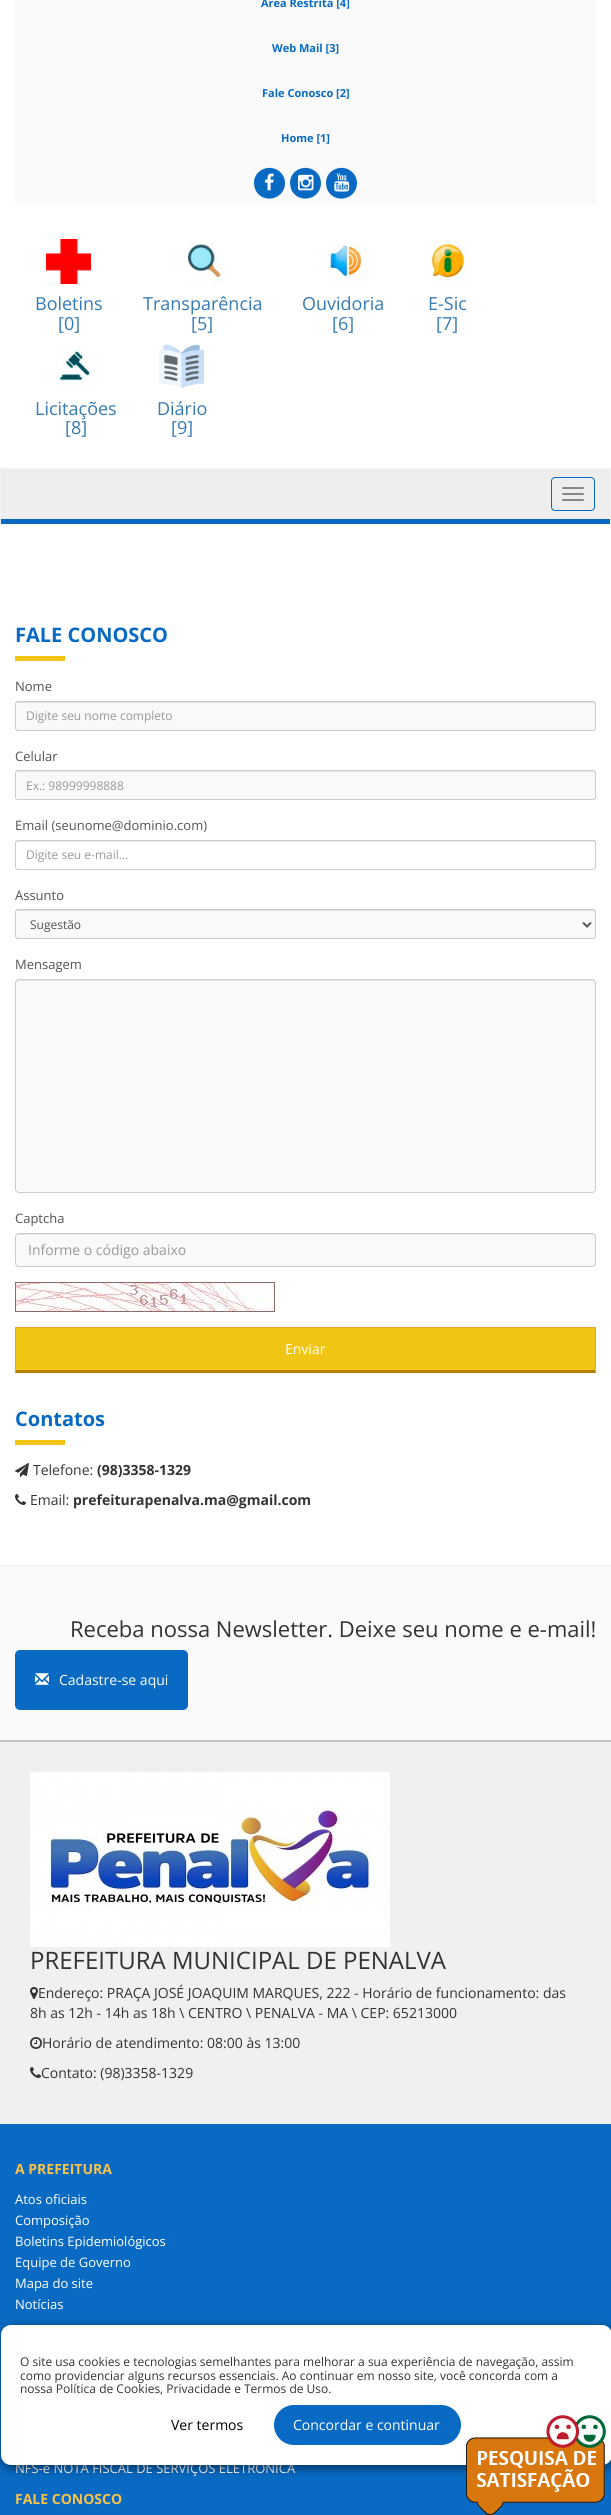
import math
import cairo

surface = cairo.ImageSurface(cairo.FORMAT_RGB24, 611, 2515)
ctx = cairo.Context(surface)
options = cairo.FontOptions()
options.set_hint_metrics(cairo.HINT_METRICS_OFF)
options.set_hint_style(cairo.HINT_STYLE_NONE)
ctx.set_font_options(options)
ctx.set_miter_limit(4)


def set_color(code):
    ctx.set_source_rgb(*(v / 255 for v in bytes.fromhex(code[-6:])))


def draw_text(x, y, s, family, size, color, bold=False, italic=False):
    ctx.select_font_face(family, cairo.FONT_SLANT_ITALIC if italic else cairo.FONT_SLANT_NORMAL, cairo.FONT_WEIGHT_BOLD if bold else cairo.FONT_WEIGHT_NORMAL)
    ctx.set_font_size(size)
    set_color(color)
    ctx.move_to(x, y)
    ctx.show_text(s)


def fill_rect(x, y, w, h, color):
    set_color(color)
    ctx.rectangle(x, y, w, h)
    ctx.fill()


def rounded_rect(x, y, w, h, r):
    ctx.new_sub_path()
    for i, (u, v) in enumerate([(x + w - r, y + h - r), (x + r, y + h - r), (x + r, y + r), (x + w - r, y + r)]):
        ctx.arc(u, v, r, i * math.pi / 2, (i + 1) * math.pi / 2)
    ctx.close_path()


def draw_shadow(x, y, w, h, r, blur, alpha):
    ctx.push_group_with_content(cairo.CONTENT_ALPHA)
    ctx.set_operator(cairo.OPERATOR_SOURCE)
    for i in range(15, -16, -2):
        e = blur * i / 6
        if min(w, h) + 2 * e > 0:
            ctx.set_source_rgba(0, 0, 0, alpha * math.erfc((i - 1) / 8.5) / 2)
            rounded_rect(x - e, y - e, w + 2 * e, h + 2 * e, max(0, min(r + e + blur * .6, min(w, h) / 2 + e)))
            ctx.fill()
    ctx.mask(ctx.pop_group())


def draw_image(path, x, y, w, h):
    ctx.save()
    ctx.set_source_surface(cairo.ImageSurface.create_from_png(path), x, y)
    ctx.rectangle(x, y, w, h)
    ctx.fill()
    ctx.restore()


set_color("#ffffff")
ctx.paint()
fill_rect(15, 0, 581, 205, "#fafafa")
draw_text(261, 7, "Área Restrita [4]", "Open Sans", 11, "#086ac3", bold=True)
draw_text(272, 52, "Web Mail [3]", "Open Sans", 11, "#086ac3", bold=True)
draw_text(262, 97, "Fale Conosco [2]", "Open Sans", 11, "#086ac3", bold=True)
draw_text(281, 142, "Home [1]", "Open Sans", 11, "#086ac3", bold=True)
ctx.new_path()
ctx.move_to(283, 175.5)
ctx.curve_to(284.5, 178, 285, 181, 285, 184)
ctx.curve_to(284, 199.5, 263.5, 204, 256, 191)
ctx.curve_to(254.5, 188, 254, 185, 254, 182)
ctx.curve_to(255, 167, 275, 162.5, 283, 175.5)
ctx.close_path()
ctx.fill()
draw_image("assets/img1.png", 264, 173, 10, 18)
ctx.new_path()
ctx.move_to(319, 175.5)
ctx.curve_to(320.5, 178, 321, 181, 321, 184)
ctx.curve_to(320, 199.5, 299.5, 204, 292, 191)
ctx.curve_to(290.5, 188, 290, 185, 290, 182)
ctx.curve_to(291, 167, 311, 162.5, 319, 175.5)
ctx.close_path()
ctx.fill()
draw_image("assets/img2.png", 298, 174, 16, 17)
ctx.new_path()
ctx.move_to(355, 175.5)
ctx.curve_to(356.5, 178, 357, 181, 357, 184)
ctx.curve_to(356, 199.5, 335.5, 204, 328, 191)
ctx.curve_to(326.5, 188, 326, 185, 326, 182)
ctx.curve_to(327, 167, 347, 162.5, 355, 175.5)
ctx.close_path()
ctx.fill()
draw_image("assets/img3.png", 334, 173, 16, 19)
draw_image("assets/img4.png", 46, 239, 45, 45)
draw_text(35, 310, "Boletins", "Open Sans", 18, "#337ab7")
draw_text(58, 330, "[0]", "Open Sans", 18, "#337ab7")
draw_image("assets/img5.png", 181, 243, 44, 41)
draw_text(143, 310, "Transparência", "Open Sans", 18, "#337ab7")
draw_text(191, 330, "[5]", "Open Sans", 18, "#337ab7")
draw_image("assets/img6.png", 323, 243, 43, 41)
draw_text(302, 310, "Ouvidoria", "Open Sans", 18, "#337ab7")
draw_text(332, 330, "[6]", "Open Sans", 18, "#337ab7")
draw_image("assets/img7.png", 427, 243, 43, 41)
draw_text(428, 310, "E-Sic", "Open Sans", 18, "#337ab7")
draw_text(436, 330, "[7]", "Open Sans", 18, "#337ab7")
draw_image("assets/img8.png", 53, 348, 45, 41)
draw_text(35, 415, "Licitações", "Open Sans", 18, "#337ab7")
draw_text(65, 434, "[8]", "Open Sans", 18, "#337ab7")
draw_image("assets/img9.png", 159, 344, 45, 45)
draw_text(157, 415, "Diário", "Open Sans", 18, "#337ab7")
draw_text(171, 434, "[9]", "Open Sans", 18, "#337ab7")
fill_rect(1, 469, 609, 50, "#eeeeee")
fill_rect(0, 468, 611, 1, "#f3f3f3")
fill_rect(610, 468, 1, 56, "#f3f3f3")
fill_rect(0, 468, 1, 56, "#f3f3f3")
rounded_rect(551.5, 477.5, 43, 33, 3.5)
set_color("#086ac3")
ctx.set_line_width(1)
ctx.stroke()
set_color("#888888")
rounded_rect(562, 487, 22, 2, 1)
ctx.fill()
rounded_rect(562, 493, 22, 2, 1)
ctx.fill()
rounded_rect(562, 499, 22, 2, 1)
ctx.fill()
fill_rect(1, 519, 609, 5, "#096ac4")
draw_text(15, 642, "FALE CONOSCO", "Open Sans", 20, "#086ac3", bold=True)
fill_rect(15, 656, 50, 5, "#f0c514")
draw_text(15, 691, "Nome", "Open Sans", 13, "#535353")
set_color("#f9f9f9")
rounded_rect(15, 701, 581, 30, 3)
ctx.fill()
set_color("#e6e6e6")
ctx.new_path()
ctx.move_to(18, 703)
ctx.line_to(593, 703)
ctx.line_to(595, 705)
ctx.curve_to(595, 704, 595, 702, 593, 702)
ctx.line_to(18, 702)
ctx.curve_to(16, 702, 16, 703, 16, 705)
ctx.curve_to(16, 704, 17, 703, 18, 703)
ctx.close_path()
ctx.fill()
rounded_rect(15.5, 701.5, 580, 29, 2.5)
set_color("#cccccc")
ctx.stroke()
draw_text(26, 720, "Digite seu nome completo", "Open Sans", 12, "#999999")
draw_text(15, 761, "Celular", "Open Sans", 13, "#535353")
set_color("#f9f9f9")
rounded_rect(15, 770, 581, 30, 3)
ctx.fill()
set_color("#e6e6e6")
ctx.new_path()
ctx.move_to(18, 772)
ctx.line_to(593, 772)
ctx.line_to(595, 774)
ctx.curve_to(595, 773, 595, 771, 593, 771)
ctx.line_to(18, 771)
ctx.curve_to(16, 771, 16, 772, 16, 774)
ctx.curve_to(16, 773, 17, 772, 18, 772)
ctx.close_path()
ctx.fill()
rounded_rect(15.5, 770.5, 580, 29, 2.5)
set_color("#cccccc")
ctx.stroke()
draw_text(26, 790, "Ex.: 98999998888", "Open Sans", 12, "#999999")
draw_text(15, 830, "Email (seunome@dominio.com)", "Open Sans", 13, "#535353")
set_color("#ececec")
ctx.new_path()
ctx.move_to(18, 842)
ctx.line_to(593, 842)
ctx.line_to(595, 844)
ctx.curve_to(595, 843, 595, 841, 593, 841)
ctx.line_to(18, 841)
ctx.curve_to(16, 841, 16, 842, 16, 844)
ctx.curve_to(16, 843, 17, 842, 18, 842)
ctx.close_path()
ctx.fill()
rounded_rect(15.5, 840.5, 580, 29, 2.5)
set_color("#cccccc")
ctx.stroke()
draw_text(26, 859, "Digite seu e-mail...", "Open Sans", 12, "#999999")
draw_text(15, 900, "Assunto", "Open Sans", 13, "#535353")
set_color("#f9f9f9")
rounded_rect(15, 909, 581, 30, 3)
ctx.fill()
set_color("#e6e6e6")
ctx.new_path()
ctx.move_to(18, 911)
ctx.line_to(593, 911)
ctx.line_to(595, 913)
ctx.curve_to(595, 912, 595, 910, 593, 910)
ctx.line_to(18, 910)
ctx.curve_to(16, 910, 16, 911, 16, 913)
ctx.curve_to(16, 912, 17, 911, 18, 911)
ctx.close_path()
ctx.fill()
rounded_rect(15.5, 909.5, 580, 29, 2.5)
set_color("#cccccc")
ctx.stroke()
ctx.new_path()
ctx.move_to(583, 922.5)
ctx.line_to(587, 926.5)
ctx.line_to(591, 922.5)
set_color("#555555")
ctx.set_line_width(2)
ctx.stroke()
draw_text(30, 929, "Sugestão", "Open Sans", 12, "#535353")
draw_text(15, 969, "Mensagem", "Open Sans", 13, "#535353")
set_color("#f9f9f9")
rounded_rect(15, 979, 581, 214, 4)
ctx.fill()
set_color("#e6e6e6")
ctx.new_path()
ctx.move_to(19, 981)
ctx.line_to(592, 981)
ctx.curve_to(594, 981, 595, 982, 595, 984)
ctx.line_to(595, 983)
ctx.curve_to(595, 981, 594, 980, 592, 980)
ctx.line_to(19, 980)
ctx.curve_to(17, 980, 16, 981, 16, 983)
ctx.line_to(16, 984)
ctx.curve_to(16, 982, 17, 981, 19, 981)
ctx.close_path()
ctx.fill()
rounded_rect(15.5, 979.5, 580, 213, 3.5)
set_color("#cccccc")
ctx.set_line_width(1)
ctx.stroke()
draw_text(15, 1223, "Captcha", "Open Sans", 13, "#535353")
set_color("#f9f9f9")
rounded_rect(15, 1233, 581, 34, 4)
ctx.fill()
set_color("#e6e6e6")
ctx.new_path()
ctx.move_to(19, 1235)
ctx.line_to(592, 1235)
ctx.curve_to(594, 1235, 595, 1236, 595, 1238)
ctx.line_to(595, 1237)
ctx.curve_to(595, 1235, 594, 1234, 592, 1234)
ctx.line_to(19, 1234)
ctx.curve_to(17, 1234, 16, 1235, 16, 1237)
ctx.line_to(16, 1238)
ctx.curve_to(16, 1236, 17, 1235, 19, 1235)
ctx.close_path()
ctx.fill()
rounded_rect(15.5, 1233.5, 580, 33, 3.5)
set_color("#cccccc")
ctx.stroke()
draw_text(28, 1255, "Informe o código abaixo", "Open Sans", 14, "#999999")
draw_image("assets/img10.png", 15, 1282, 260, 30)
fill_rect(16, 1328, 579, 42, "#f0c514")
fill_rect(15, 1327, 581, 1, "#eea236")
ctx.new_path()
ctx.move_to(596, 1327)
ctx.line_to(596, 1373)
ctx.line_to(595, 1370)
ctx.line_to(595, 1328)
ctx.close_path()
ctx.fill()
set_color("#b67e05")
ctx.new_path()
ctx.move_to(596, 1373)
ctx.line_to(15, 1373)
ctx.line_to(16, 1370)
ctx.line_to(595, 1370)
ctx.close_path()
ctx.fill()
set_color("#eea236")
ctx.new_path()
ctx.move_to(15, 1373)
ctx.line_to(15, 1327)
ctx.line_to(16, 1328)
ctx.line_to(16, 1370)
ctx.close_path()
ctx.fill()
draw_text(285, 1354, "Enviar", "Open Sans", 14, "#ffffff")
draw_text(15, 1426, "Contatos", "Open Sans", 20, "#086ac3", bold=True)
fill_rect(15, 1440, 50, 5, "#f0c514")
draw_image("assets/img11.png", 15, 1463, 14, 14)
draw_text(33, 1475, "Telefone:", "Open Sans", 14, "#333333")
draw_text(97, 1475, "(98)3358-1329", "Open Sans", 14, "#333333", bold=True)
draw_image("assets/img12.png", 15, 1494, 11, 11)
draw_text(30, 1505, "Email:", "Open Sans", 14, "#333333")
draw_text(73, 1505, "prefeiturapenalva.ma@gmail.com", "Open Sans", 14, "#333333", bold=True)
fill_rect(0, 1566, 611, 174, "#fafafa")
fill_rect(0, 1565, 611, 1, "#eeeeee")
draw_text(70, 1637, "Receba nossa Newsletter. Deixe seu nome e e-mail!", "Open Sans", 22, "#333333")
set_color("#086ac3")
rounded_rect(15, 1650, 173, 60, 5)
ctx.fill()
draw_image("assets/img13.png", 35, 1673, 14, 12)
draw_text(59, 1685, "Cadastre-se aqui", "Open Sans", 14, "#ffffff")
fill_rect(0, 1742, 611, 381, "#f0f0f0")
fill_rect(0, 1740, 611, 2, "#c3c3c3")
draw_image("assets/img14.png", 30, 1772, 360, 175)
draw_text(30, 1969, "PREFEITURA MUNICIPAL DE PENALVA", "Open Sans", 24, "#333333")
draw_image("assets/img15.png", 30, 1987, 8, 12)
draw_text(38, 1998, "Endereço: PRAÇA JOSÉ JOAQUIM MARQUES, 222 - Horário de funcionamento: das", "Open Sans", 14, "#333333")
draw_text(30, 2018, "8h as 12h - 14h as 18h \\ CENTRO \\ PENALVA - MA \\ CEP: 65213000", "Open Sans", 14, "#333333")
draw_image("assets/img16.png", 30, 2037, 12, 12)
draw_text(42, 2048, "Horário de atendimento: 08:00 às 13:00", "Open Sans", 14, "#333333")
draw_image("assets/img17.png", 30, 2067, 11, 11)
draw_text(41, 2078, "Contato: (98)3358-1329", "Open Sans", 14, "#333333")
fill_rect(0, 2124, 611, 391, "#086ac3")
fill_rect(0, 2123, 611, 1, "#f3f3f3")
draw_text(15, 2174, "A PREFEITURA", "Open Sans", 14, "#fbc249", bold=True)
draw_text(15, 2204, "Atos oficiais", "Open Sans", 13, "#ffffff")
draw_text(15, 2225, "Composição", "Open Sans", 13, "#ffffff")
draw_text(15, 2246, "Boletins Epidemiológicos", "Open Sans", 13, "#ffffff")
draw_text(15, 2267, "Equipe de Governo", "Open Sans", 13, "#ffffff")
draw_text(15, 2288, "Mapa do site", "Open Sans", 13, "#ffffff")
draw_text(15, 2309, "Notícias", "Open Sans", 13, "#ffffff")
draw_text(15, 2473, "NFS-e NOTA FISCAL DE SERVIÇOS ELETRÔNICA", "Open Sans", 13, "#ffffff")
draw_text(15, 2504, "FALE CONOSCO", "Open Sans", 14, "#fbc249", bold=True)
ctx.save()
ctx.set_fill_rule(cairo.FILL_RULE_EVEN_ODD)
ctx.new_path()
ctx.move_to(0, 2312)
ctx.line_to(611, 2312)
ctx.line_to(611, 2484)
ctx.line_to(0, 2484)
ctx.close_path()
ctx.move_to(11, 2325)
ctx.line_to(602, 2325)
ctx.curve_to(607.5, 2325, 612, 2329.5, 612, 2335)
ctx.line_to(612, 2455)
ctx.curve_to(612, 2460.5, 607.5, 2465, 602, 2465)
ctx.line_to(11, 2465)
ctx.curve_to(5.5, 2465, 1, 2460.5, 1, 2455)
ctx.line_to(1, 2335)
ctx.curve_to(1, 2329.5, 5.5, 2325, 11, 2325)
ctx.close_path()
ctx.clip()
set_color("#000000")
draw_shadow(2, 2328, 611, 140, 10, 5, 0.54)
ctx.restore()
set_color("#ffffff")
rounded_rect(1, 2325, 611, 140, 10)
ctx.fill()
draw_image("assets/img18.png", 466, 2415, 140, 100)
draw_text(20, 2366, "O site usa cookies e tecnologias semelhantes para melhorar a sua experiência de navegação, assim", "Open Sans", 12, "#333333")
draw_text(20, 2380, "como providenciar alguns recursos essenciais. Ao continuar em nosso site, você concorda com a", "Open Sans", 12, "#333333")
draw_text(20, 2393, "nossa Política de Cookies, Privacidade e Termos de Uso.", "Open Sans", 12, "#333333")
draw_text(171, 2430, "Ver termos", "Open Sans", 14, "#000000")
set_color("#086ac3")
rounded_rect(274, 2405, 187, 40, 20)
ctx.fill()
draw_text(293, 2430, "Concordar e continuar", "Open Sans", 14, "#ffffff")
surface.write_to_png("output.png")
